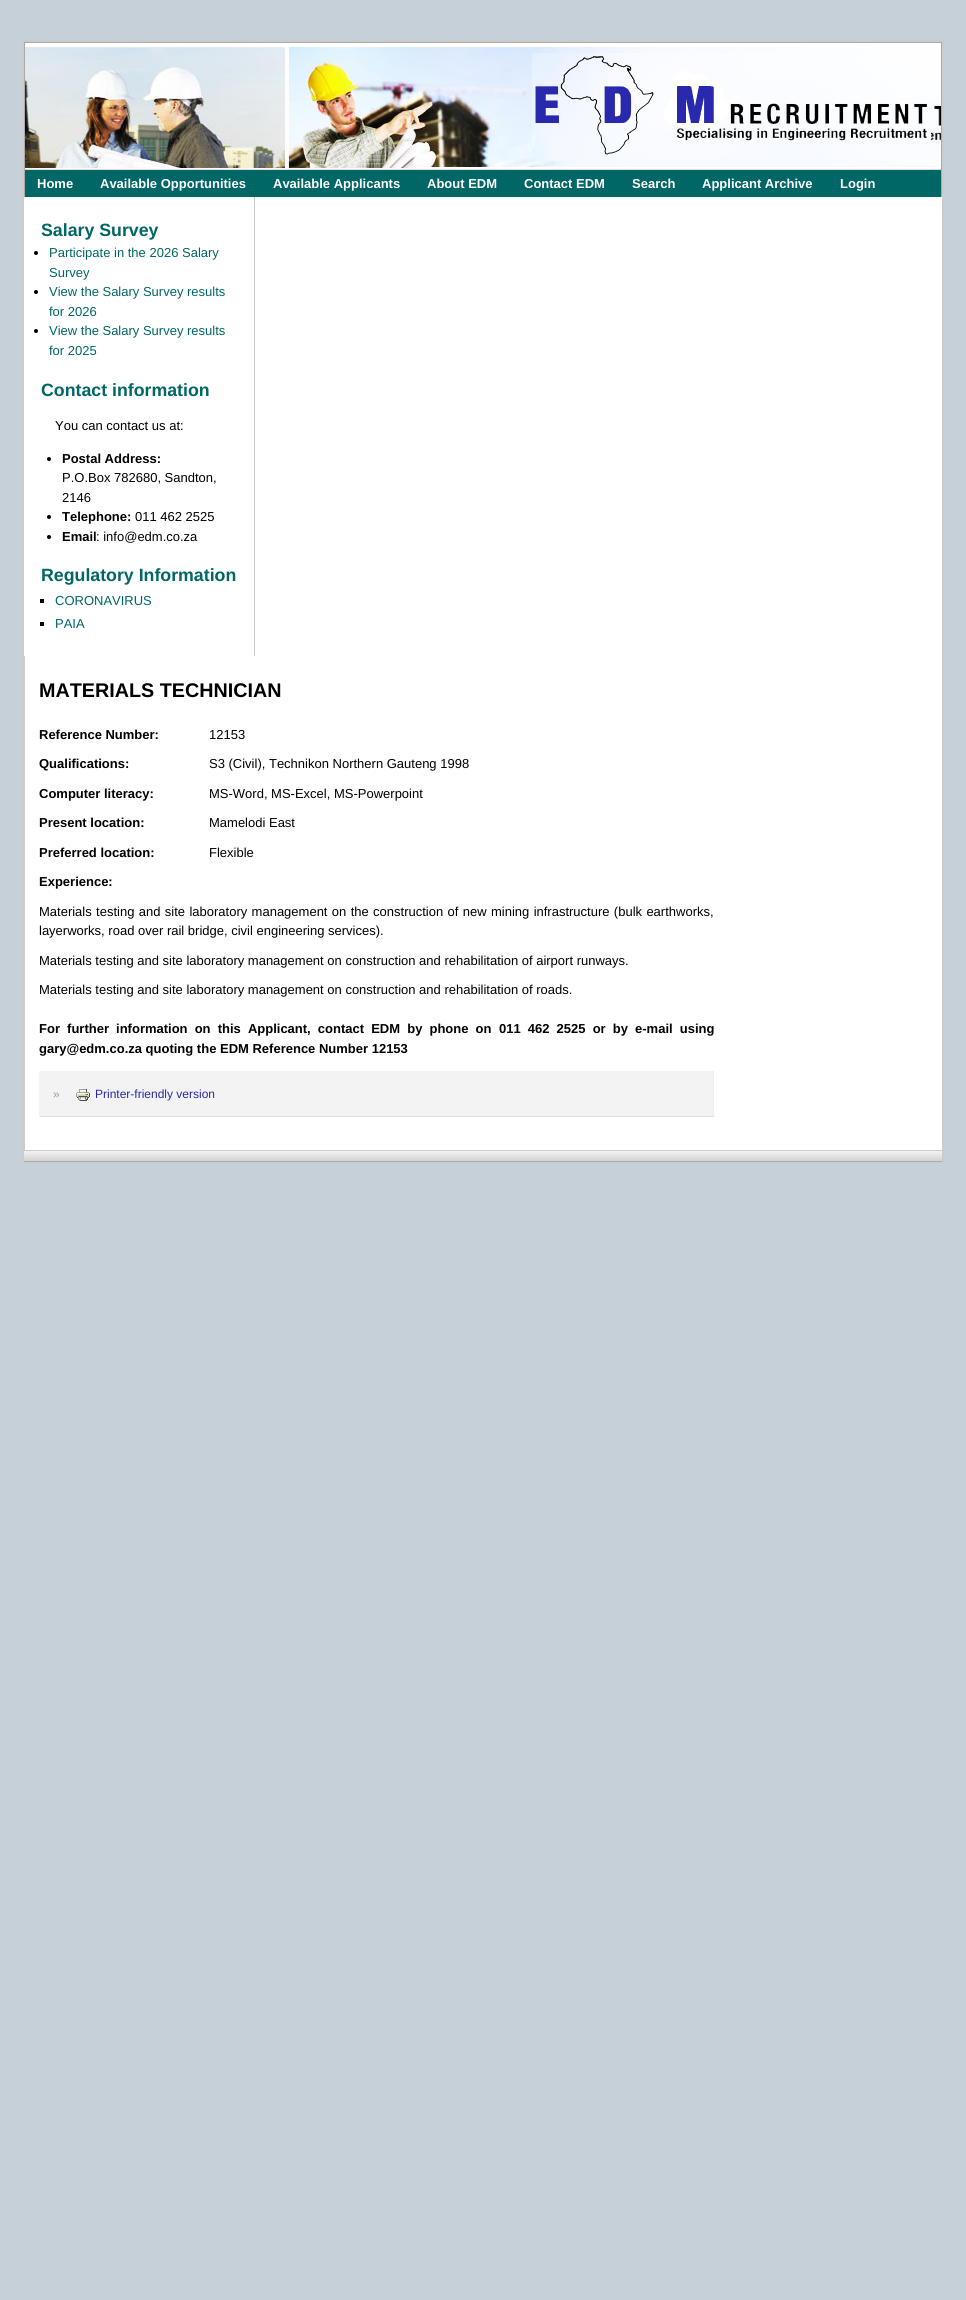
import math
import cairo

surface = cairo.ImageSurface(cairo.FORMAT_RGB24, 966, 2300)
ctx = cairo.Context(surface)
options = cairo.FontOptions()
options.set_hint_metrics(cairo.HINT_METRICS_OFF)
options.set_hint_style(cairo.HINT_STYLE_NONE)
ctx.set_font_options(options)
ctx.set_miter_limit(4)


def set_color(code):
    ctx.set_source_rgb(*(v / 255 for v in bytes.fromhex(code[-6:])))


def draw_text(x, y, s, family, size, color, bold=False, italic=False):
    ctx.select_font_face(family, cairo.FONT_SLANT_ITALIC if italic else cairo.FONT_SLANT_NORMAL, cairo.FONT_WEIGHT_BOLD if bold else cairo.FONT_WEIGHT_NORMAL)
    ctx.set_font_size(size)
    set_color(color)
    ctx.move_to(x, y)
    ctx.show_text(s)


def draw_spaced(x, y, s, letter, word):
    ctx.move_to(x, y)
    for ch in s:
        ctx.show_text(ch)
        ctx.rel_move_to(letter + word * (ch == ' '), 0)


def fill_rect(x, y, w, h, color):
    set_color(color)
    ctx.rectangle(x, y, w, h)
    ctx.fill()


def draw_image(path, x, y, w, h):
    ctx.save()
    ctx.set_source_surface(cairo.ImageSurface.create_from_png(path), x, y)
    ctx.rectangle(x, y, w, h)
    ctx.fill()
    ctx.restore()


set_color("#c5d0d9")
ctx.paint()
fill_rect(24, 197, 918, 953, "#ffffff")
ctx.rectangle(23, 41, 920, 1122)
set_color("#cccccc")
ctx.stroke()
draw_image("assets/img1.png", 25, 43, 916, 126)
fill_rect(24, 42, 918, 1, "#aaaaaa")
fill_rect(941, 42, 1, 155, "#aaaaaa")
fill_rect(24, 42, 1, 155, "#aaaaaa")
draw_image("assets/img2.png", 532, 53, 399, 108)
fill_rect(25, 170, 916, 27, "#006666")
fill_rect(25, 169, 916, 1, "#dddddd")
draw_text(37, 188, "Home", "Liberation Sans", 13, "#ffffff", bold=True)
draw_text(100, 188, "Available Opportunities", "Liberation Sans", 13, "#ffffff", bold=True)
draw_text(273, 188, "Available Applicants", "Liberation Sans", 13, "#ffffff", bold=True)
draw_text(427, 188, "About EDM", "Liberation Sans", 13, "#ffffff", bold=True)
draw_text(524, 188, "Contact EDM", "Liberation Sans", 13, "#ffffff", bold=True)
draw_text(632, 188, "Search", "Liberation Sans", 13, "#ffffff", bold=True)
draw_text(702, 188, "Applicant Archive", "Liberation Sans", 13, "#ffffff", bold=True)
draw_text(840, 188, "Login", "Liberation Sans", 13, "#ffffff", bold=True)
fill_rect(254, 197, 1, 459, "#cccccc")
draw_text(41, 236, "Salary Survey", "Liberation Sans", 17.75, "#006666", bold=True)
set_color("#000000")
ctx.new_path()
ctx.arc(36, 253, 2, 0, 2 * math.pi)
ctx.fill()
draw_text(49, 257, "Participate in the 2026 Salary", "Liberation Sans", 13, "#006666")
draw_text(49, 277, "Survey", "Liberation Sans", 13, "#006666")
set_color("#000000")
ctx.new_path()
ctx.arc(36, 292, 2, 0, 2 * math.pi)
ctx.fill()
draw_text(49, 296, "View the Salary Survey results", "Liberation Sans", 13, "#006666")
draw_text(49, 316, "for 2026", "Liberation Sans", 13, "#006666")
set_color("#000000")
ctx.new_path()
ctx.arc(36, 331, 2, 0, 2 * math.pi)
ctx.fill()
draw_text(49, 335, "View the Salary Survey results", "Liberation Sans", 13, "#006666")
draw_text(49, 355, "for 2025", "Liberation Sans", 13, "#006666")
draw_text(41, 396, "Contact information", "Liberation Sans", 17.75, "#006666", bold=True)
draw_text(55, 430, "You can contact us at:", "Liberation Sans", 13, "#000000")
ctx.new_path()
ctx.arc(49, 459, 2, 0, 2 * math.pi)
ctx.fill()
draw_text(62, 463, "Postal Address:", "Liberation Sans", 13, "#000000", bold=True)
draw_text(62, 482, "P.O.Box 782680, Sandton,", "Liberation Sans", 13, "#000000")
draw_text(62, 502, "2146", "Liberation Sans", 13, "#000000")
ctx.new_path()
ctx.arc(49, 517, 2, 0, 2 * math.pi)
ctx.fill()
draw_text(62, 521, "Telephone:", "Liberation Sans", 13, "#000000", bold=True)
draw_text(135, 521, "011 462 2525", "Liberation Sans", 13, "#000000")
ctx.new_path()
ctx.arc(49, 537, 2, 0, 2 * math.pi)
ctx.fill()
draw_text(62, 541, "Email", "Liberation Sans", 13, "#000000", bold=True)
draw_text(96, 541, ": info@edm.co.za", "Liberation Sans", 13, "#000000")
draw_text(41, 581, "Regulatory Information", "Liberation Sans", 17.75, "#006666", bold=True)
fill_rect(40, 599, 4, 4, "#000000")
draw_text(55, 605, "CORONAVIRUS", "Liberation Sans", 13, "#006666")
fill_rect(40, 622, 4, 4, "#000000")
draw_text(55, 628, "PAIA", "Liberation Sans", 13, "#006666")
fill_rect(24, 656, 1, 494, "#cccccc")
draw_text(39, 697, "MATERIALS TECHNICIAN", "Liberation Sans", 19.75, "#000000", bold=True)
draw_text(39, 739, "Reference Number:", "Liberation Sans", 13, "#000000", bold=True)
draw_text(209, 739, "12153", "Liberation Sans", 13, "#000000")
draw_text(39, 768, "Qualifications:", "Liberation Sans", 13, "#000000", bold=True)
draw_text(209, 768, "S3 (Civil), Technikon Northern Gauteng 1998", "Liberation Sans", 13, "#000000")
draw_text(39, 798, "Computer literacy:", "Liberation Sans", 13, "#000000", bold=True)
draw_text(209, 798, "MS-Word, MS-Excel, MS-Powerpoint", "Liberation Sans", 13, "#000000")
draw_text(39, 827, "Present location:", "Liberation Sans", 13, "#000000", bold=True)
draw_text(209, 827, "Mamelodi East", "Liberation Sans", 13, "#000000")
draw_text(39, 857, "Preferred location:", "Liberation Sans", 13, "#000000", bold=True)
draw_text(209, 857, "Flexible", "Liberation Sans", 13, "#000000")
draw_text(39, 886, "Experience:", "Liberation Sans", 13, "#000000", bold=True)
ctx.select_font_face("Liberation Sans")
draw_spaced(39, 916, "Materials testing and site laboratory management on the construction of new mining infrastructure (bulk earthworks,", 0, 0.75)
draw_text(39, 935, "layerworks, road over rail bridge, civil engineering services).", "Liberation Sans", 13, "#000000")
draw_text(39, 965, "Materials testing and site laboratory management on construction and rehabilitation of airport runways.", "Liberation Sans", 13, "#000000")
draw_text(39, 994, "Materials testing and site laboratory management on construction and rehabilitation of roads.", "Liberation Sans", 13, "#000000")
ctx.select_font_face("Liberation Sans", cairo.FONT_SLANT_NORMAL, cairo.FONT_WEIGHT_BOLD)
draw_spaced(39, 1033, "For further information on this Applicant, contact EDM by phone on", 0, 3.5)
draw_spaced(499, 1033, "011 462 2525 or by e-mail using", 0, 3.5)
draw_text(39, 1053, "gary@edm.co.za quoting the EDM Reference Number 12153", "Liberation Sans", 13, "#000000", bold=True)
fill_rect(40, 1071, 673, 45, "#f3f3f3")
fill_rect(713, 1071, 1, 46, "#eeeeee")
fill_rect(39, 1116, 675, 1, "#dddddd")
fill_rect(39, 1071, 1, 46, "#f3f3f3")
draw_text(53, 1098, "»", "Liberation Sans", 12, "#999999")
draw_image("assets/img3.png", 76, 1089, 14, 12)
draw_text(95, 1098, "Printer-friendly version", "Liberation Sans", 12, "#2929ad")
draw_image("assets/img4.png", 24, 1151, 918, 11)
fill_rect(24, 1150, 918, 1, "#cccccc")
surface.write_to_png("output.png")
